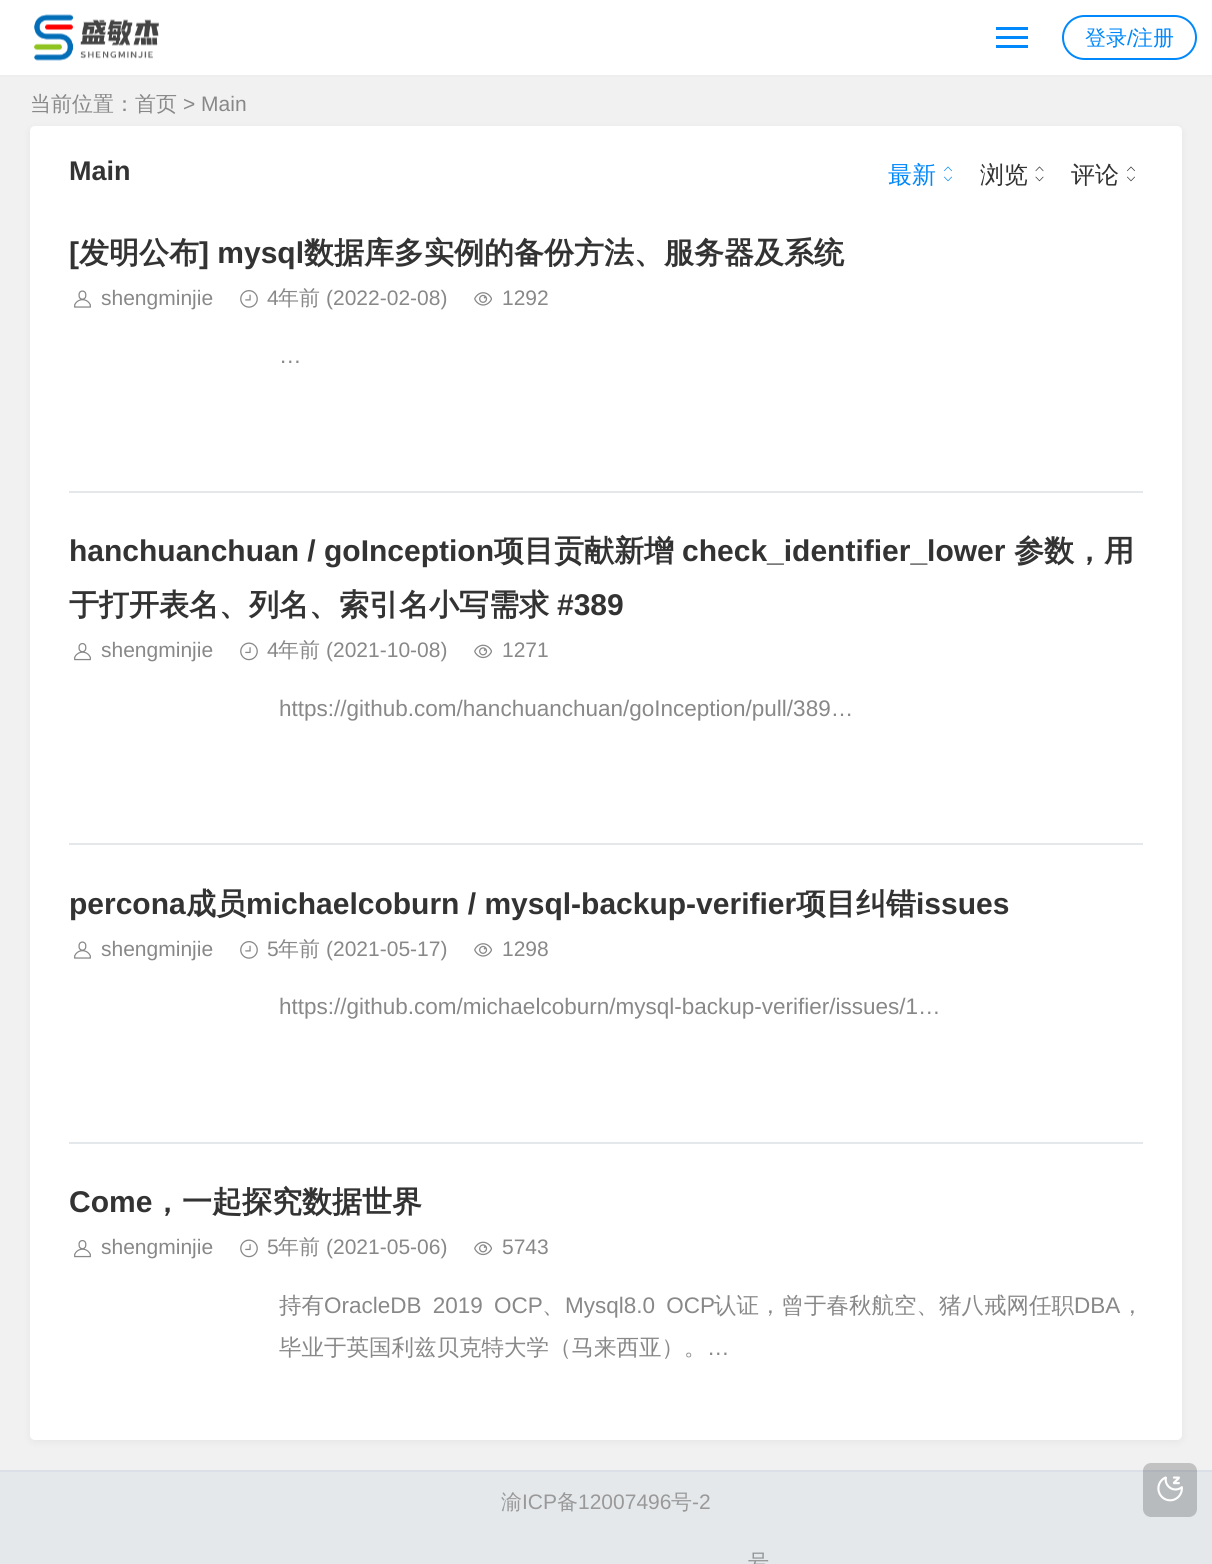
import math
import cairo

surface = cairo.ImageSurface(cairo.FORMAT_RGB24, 1212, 1564)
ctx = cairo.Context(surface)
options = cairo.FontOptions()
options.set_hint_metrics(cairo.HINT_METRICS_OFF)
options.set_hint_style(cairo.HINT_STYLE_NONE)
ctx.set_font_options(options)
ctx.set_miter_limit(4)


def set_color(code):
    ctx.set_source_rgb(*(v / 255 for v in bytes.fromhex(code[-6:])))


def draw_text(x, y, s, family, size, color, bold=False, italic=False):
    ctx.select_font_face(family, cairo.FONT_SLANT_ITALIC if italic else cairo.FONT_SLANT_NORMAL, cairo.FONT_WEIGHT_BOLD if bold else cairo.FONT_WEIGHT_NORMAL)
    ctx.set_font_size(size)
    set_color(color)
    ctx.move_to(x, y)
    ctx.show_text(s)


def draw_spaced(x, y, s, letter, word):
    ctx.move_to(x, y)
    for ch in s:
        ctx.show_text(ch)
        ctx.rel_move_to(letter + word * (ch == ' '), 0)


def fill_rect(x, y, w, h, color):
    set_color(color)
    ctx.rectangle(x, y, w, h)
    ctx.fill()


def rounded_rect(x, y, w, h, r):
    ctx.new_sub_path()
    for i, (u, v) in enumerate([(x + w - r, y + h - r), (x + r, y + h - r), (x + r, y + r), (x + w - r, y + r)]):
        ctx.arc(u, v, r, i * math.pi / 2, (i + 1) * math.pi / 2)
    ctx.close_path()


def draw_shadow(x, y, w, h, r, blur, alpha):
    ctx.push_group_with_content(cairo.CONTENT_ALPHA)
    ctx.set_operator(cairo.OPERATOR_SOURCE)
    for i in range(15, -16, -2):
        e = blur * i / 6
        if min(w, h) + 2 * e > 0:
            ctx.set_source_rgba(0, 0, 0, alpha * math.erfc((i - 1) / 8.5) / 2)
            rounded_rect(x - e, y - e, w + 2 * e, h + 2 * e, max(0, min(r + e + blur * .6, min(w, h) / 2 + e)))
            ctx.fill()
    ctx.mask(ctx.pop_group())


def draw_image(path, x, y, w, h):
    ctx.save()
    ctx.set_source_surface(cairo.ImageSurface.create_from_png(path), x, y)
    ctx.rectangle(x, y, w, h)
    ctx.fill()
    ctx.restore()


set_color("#e4e8eb")
ctx.paint()
fill_rect(0, 77, 1212, 1393, "#f1f1f1")
fill_rect(0, 0, 1212, 75, "#ffffff")
fill_rect(0, 75, 1212, 2, "#eeeeee")
draw_image("assets/img1.png", 34, 14, 125, 47)
fill_rect(996, 27, 32, 3, "#0188fb")
fill_rect(996, 36, 32, 3, "#0188fb")
fill_rect(996, 45, 32, 3, "#0188fb")
rounded_rect(1063, 16, 133, 43, 21.5)
ctx.stroke()
draw_text(1085, 45, "登录", "WenQuanYi Zen Hei Medium", 21, "#0188fb")
draw_text(1127, 45, "/", "Liberation Sans", 21, "#0188fb")
draw_text(1132, 45, "注册", "WenQuanYi Zen Hei Medium", 21, "#0188fb")
draw_text(30, 111, "当前位置：首页", "WenQuanYi Zen Hei Medium", 21, "#888888")
draw_text(183, 111, "> Main", "Liberation Sans", 21, "#888888")
set_color("#000000")
draw_shadow(30, 128, 1152, 1314, 5, 4, 0.05)
set_color("#ffffff")
rounded_rect(30, 126, 1152, 1314, 5)
ctx.fill()
draw_text(69, 180, "Main", "Liberation Sans", 27, "#333333", bold=True)
draw_text(888, 183, "最新", "WenQuanYi Zen Hei Medium", 24, "#0188fb")
draw_image("assets/img2.png", 944, 166, 8, 16)
draw_text(980, 183, "浏览", "WenQuanYi Zen Hei Medium", 24, "#333333")
draw_image("assets/img3.png", 1035, 166, 9, 16)
draw_text(1071, 183, "评论", "WenQuanYi Zen Hei Medium", 24, "#333333")
draw_image("assets/img4.png", 1127, 166, 8, 16)
fill_rect(69, 491, 1074, 2, "#e4e8eb")
draw_text(69, 263, "[", "Liberation Sans", 30, "#333333", bold=True)
draw_text(79, 263, "发明公布", "WenQuanYi Zen Hei", 30, "#333333", bold=True)
draw_text(199, 263, "] mysql", "Liberation Sans", 30, "#333333", bold=True)
draw_text(304, 263, "数据库多实例的备份方法、服务器及系统", "WenQuanYi Zen Hei", 30, "#333333", bold=True)
draw_image("assets/img5.png", 74, 290, 17, 18)
draw_text(101, 305, "shengminjie", "Liberation Sans", 21, "#888888")
draw_image("assets/img6.png", 240, 290, 18, 18)
draw_text(267, 305, "4", "Liberation Sans", 21, "#888888")
draw_text(278, 305, "年前", "WenQuanYi Zen Hei Medium", 21, "#888888")
draw_text(326, 305, "(2022-02-08)", "Liberation Sans", 21, "#888888")
draw_image("assets/img7.png", 474, 292, 19, 14)
draw_text(502, 305, "1292", "Liberation Sans", 21, "#888888")
draw_text(279, 363, "…", "Liberation Sans", 22.5, "#888888")
fill_rect(69, 843, 1074, 2, "#e4e8eb")
draw_text(69, 561, "hanchuanchuan / goInception", "Liberation Sans", 30, "#333333", bold=True)
draw_text(494, 561, "项目贡献新增", "WenQuanYi Zen Hei", 30, "#333333", bold=True)
draw_text(682, 561, "check_identifier_lower", "Liberation Sans", 30, "#333333", bold=True)
draw_text(1014, 561, "参数，用", "WenQuanYi Zen Hei", 30, "#333333", bold=True)
draw_text(69, 615, "于打开表名、列名、索引名小写需求", "WenQuanYi Zen Hei", 30, "#333333", bold=True)
draw_text(557, 615, "#389", "Liberation Sans", 30, "#333333", bold=True)
draw_image("assets/img8.png", 74, 643, 17, 18)
draw_text(101, 657, "shengminjie", "Liberation Sans", 21, "#888888")
draw_image("assets/img9.png", 240, 642, 18, 19)
draw_text(267, 657, "4", "Liberation Sans", 21, "#888888")
draw_text(278, 657, "年前", "WenQuanYi Zen Hei Medium", 21, "#888888")
draw_text(326, 657, "(2021-10-08)", "Liberation Sans", 21, "#888888")
draw_image("assets/img10.png", 474, 644, 19, 15)
draw_text(502, 657, "1271", "Liberation Sans", 21, "#888888")
draw_text(279, 716, "https://github.com/hanchuanchuan/goInception/pull/389…", "Liberation Sans", 22.5, "#888888")
fill_rect(69, 1142, 1074, 2, "#e4e8eb")
draw_text(69, 914, "percona", "Liberation Sans", 30, "#333333", bold=True)
draw_text(186, 914, "成员", "WenQuanYi Zen Hei", 30, "#333333", bold=True)
draw_text(246, 914, "michaelcoburn / mysql-backup-verifier", "Liberation Sans", 30, "#333333", bold=True)
draw_text(796, 914, "项目纠错", "WenQuanYi Zen Hei", 30, "#333333", bold=True)
draw_text(916, 914, "issues", "Liberation Sans", 30, "#333333", bold=True)
draw_image("assets/img5.png", 74, 941, 17, 18)
draw_text(101, 956, "shengminjie", "Liberation Sans", 21, "#888888")
draw_image("assets/img6.png", 240, 941, 18, 18)
draw_text(267, 956, "5", "Liberation Sans", 21, "#888888")
draw_text(278, 956, "年前", "WenQuanYi Zen Hei Medium", 21, "#888888")
draw_text(326, 956, "(2021-05-17)", "Liberation Sans", 21, "#888888")
draw_image("assets/img7.png", 474, 943, 19, 14)
draw_text(502, 956, "1298", "Liberation Sans", 21, "#888888")
draw_text(279, 1014, "https://github.com/michaelcoburn/mysql-backup-verifier/issues/1…", "Liberation Sans", 22.5, "#888888")
draw_text(69, 1212, "Come", "Liberation Sans", 30, "#333333", bold=True)
draw_text(152, 1212, "，一起探究数据世界", "WenQuanYi Zen Hei", 30, "#333333", bold=True)
draw_image("assets/img8.png", 74, 1240, 17, 18)
draw_text(101, 1254, "shengminjie", "Liberation Sans", 21, "#888888")
draw_image("assets/img9.png", 240, 1239, 18, 19)
draw_text(267, 1254, "5", "Liberation Sans", 21, "#888888")
draw_text(278, 1254, "年前", "WenQuanYi Zen Hei Medium", 21, "#888888")
draw_text(326, 1254, "(2021-05-06)", "Liberation Sans", 21, "#888888")
draw_image("assets/img10.png", 474, 1241, 19, 15)
draw_text(502, 1254, "5743", "Liberation Sans", 21, "#888888")
draw_text(279, 1313, "持有", "WenQuanYi Zen Hei Medium", 22.5, "#888888")
ctx.select_font_face("Liberation Sans")
draw_spaced(324, 1313, "OracleDB 2019 OCP", 0, 5)
draw_text(542, 1313, "、", "WenQuanYi Zen Hei Medium", 22.5, "#888888")
ctx.select_font_face("Liberation Sans")
draw_spaced(565, 1313, "Mysql8.0 OCP", 0, 5)
draw_text(714, 1313, "认证，曾于春秋航空、猪八戒网任职", "WenQuanYi Zen Hei Medium", 22.5, "#888888")
draw_text(1074, 1313, "DBA", "Liberation Sans", 22.5, "#888888")
draw_text(1121, 1313, "，", "WenQuanYi Zen Hei Medium", 22.5, "#888888")
draw_text(279, 1355, "毕业于英国利兹贝克特大学（马来西亚）。", "WenQuanYi Zen Hei Medium", 22.5, "#888888")
draw_text(707, 1355, "…", "Liberation Sans", 22.5, "#888888")
fill_rect(0, 1470, 1212, 2, "#dbe0e8")
draw_text(501, 1509, "渝", "WenQuanYi Zen Hei Medium", 21, "#999999")
draw_text(522, 1509, "ICP", "Liberation Sans", 21, "#999999")
draw_text(557, 1509, "备", "WenQuanYi Zen Hei Medium", 21, "#999999")
draw_text(578, 1509, "12007496", "Liberation Sans", 21, "#999999")
draw_text(671, 1509, "号", "WenQuanYi Zen Hei Medium", 21, "#999999")
draw_text(692, 1509, "-2", "Liberation Sans", 21, "#999999")
draw_text(748, 1569, "号", "WenQuanYi Zen Hei Medium", 21, "#939393")
ctx.set_source_rgba(0.039, 0.039, 0.039, 0.2)
rounded_rect(1143, 1463, 54, 54, 8)
ctx.fill()
draw_image("assets/img11.png", 1157, 1476, 26, 26)
surface.write_to_png("output.png")
